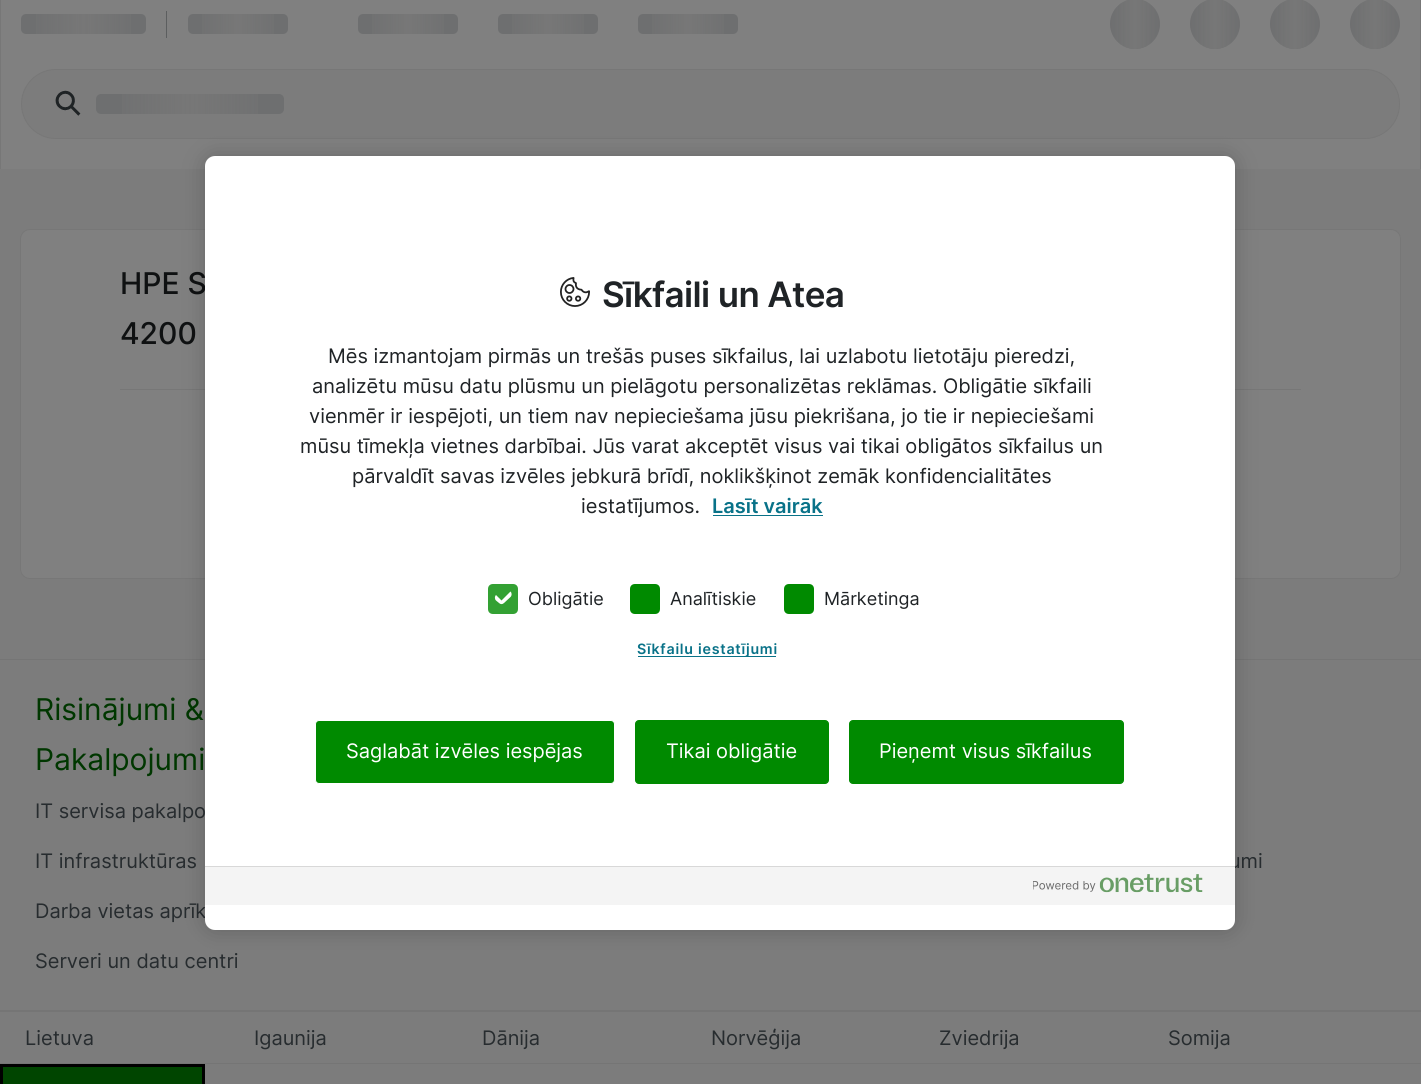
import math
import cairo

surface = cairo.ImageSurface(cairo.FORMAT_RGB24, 1421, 1084)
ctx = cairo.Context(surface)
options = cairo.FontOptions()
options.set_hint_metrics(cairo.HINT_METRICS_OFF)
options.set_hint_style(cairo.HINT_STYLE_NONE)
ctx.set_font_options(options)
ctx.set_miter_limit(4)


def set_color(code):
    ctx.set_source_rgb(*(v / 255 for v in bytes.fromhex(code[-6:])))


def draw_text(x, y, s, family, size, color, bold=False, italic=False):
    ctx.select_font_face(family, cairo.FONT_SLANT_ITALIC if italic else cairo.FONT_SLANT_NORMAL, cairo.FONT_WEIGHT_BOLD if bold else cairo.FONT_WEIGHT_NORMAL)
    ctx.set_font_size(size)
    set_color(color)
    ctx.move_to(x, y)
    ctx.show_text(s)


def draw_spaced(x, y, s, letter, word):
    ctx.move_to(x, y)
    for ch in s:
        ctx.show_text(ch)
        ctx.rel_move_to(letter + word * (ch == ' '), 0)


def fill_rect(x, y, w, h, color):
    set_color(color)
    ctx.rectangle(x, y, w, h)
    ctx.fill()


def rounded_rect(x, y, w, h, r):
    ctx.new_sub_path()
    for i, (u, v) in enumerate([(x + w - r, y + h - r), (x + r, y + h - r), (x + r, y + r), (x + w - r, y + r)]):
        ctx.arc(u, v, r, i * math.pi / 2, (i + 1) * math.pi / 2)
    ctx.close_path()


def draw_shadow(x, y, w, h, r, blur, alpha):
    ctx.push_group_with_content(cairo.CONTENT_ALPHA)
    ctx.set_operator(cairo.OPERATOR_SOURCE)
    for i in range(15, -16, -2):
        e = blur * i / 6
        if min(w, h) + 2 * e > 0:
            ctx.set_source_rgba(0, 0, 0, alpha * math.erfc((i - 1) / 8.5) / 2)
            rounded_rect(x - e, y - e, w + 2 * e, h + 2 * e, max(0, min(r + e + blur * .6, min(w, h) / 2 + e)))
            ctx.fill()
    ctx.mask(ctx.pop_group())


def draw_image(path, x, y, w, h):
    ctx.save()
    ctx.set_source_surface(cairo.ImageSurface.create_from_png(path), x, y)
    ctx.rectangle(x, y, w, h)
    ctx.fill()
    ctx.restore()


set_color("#7c7c7c")
ctx.paint()
fill_rect(1420, 0, 1, 169, "#777777")
fill_rect(0, 0, 1, 169, "#777777")
fill_rect(1, 0, 1419, 169, "#808080")
set_color("#6e6f70")
rounded_rect(21, 14, 125, 20, 5)
ctx.fill()
gradient = cairo.LinearGradient(21, 24, 146, 24)
gradient.add_color_stop_rgba(0, 0.467, 0.467, 0.467, 0)
gradient.add_color_stop_rgba(0.5, 0.467, 0.467, 0.467, 1)
gradient.add_color_stop_rgba(1, 0.467, 0.467, 0.467, 0)
ctx.set_source(gradient)
ctx.rectangle(36, 14, 95, 20)
ctx.fill()
fill_rect(166, 11, 1, 27, "#5c5e5f")
set_color("#6e6f70")
rounded_rect(188, 14, 100, 20, 5)
ctx.fill()
gradient = cairo.LinearGradient(188, 24, 288, 24)
gradient.add_color_stop_rgba(0, 0.467, 0.467, 0.467, 0)
gradient.add_color_stop_rgba(0.5, 0.467, 0.467, 0.467, 1)
gradient.add_color_stop_rgba(1, 0.467, 0.467, 0.467, 0)
ctx.set_source(gradient)
ctx.rectangle(202, 14, 72, 20)
ctx.fill()
set_color("#6e6f70")
rounded_rect(358, 14, 100, 20, 5)
ctx.fill()
gradient = cairo.LinearGradient(358, 24, 458, 24)
gradient.add_color_stop_rgba(0, 0.467, 0.467, 0.467, 0)
gradient.add_color_stop_rgba(0.5, 0.467, 0.467, 0.467, 1)
gradient.add_color_stop_rgba(1, 0.467, 0.467, 0.467, 0)
ctx.set_source(gradient)
ctx.rectangle(372, 14, 72, 20)
ctx.fill()
set_color("#6e6f70")
rounded_rect(498, 14, 100, 20, 5)
ctx.fill()
gradient = cairo.LinearGradient(498, 24, 598, 24)
gradient.add_color_stop_rgba(0, 0.467, 0.467, 0.467, 0)
gradient.add_color_stop_rgba(0.5, 0.467, 0.467, 0.467, 1)
gradient.add_color_stop_rgba(1, 0.467, 0.467, 0.467, 0)
ctx.set_source(gradient)
ctx.rectangle(512, 14, 72, 20)
ctx.fill()
set_color("#6e6f70")
rounded_rect(638, 14, 100, 20, 5)
ctx.fill()
gradient = cairo.LinearGradient(638, 24, 738, 24)
gradient.add_color_stop_rgba(0, 0.467, 0.467, 0.467, 0)
gradient.add_color_stop_rgba(0.5, 0.467, 0.467, 0.467, 1)
gradient.add_color_stop_rgba(1, 0.467, 0.467, 0.467, 0)
ctx.set_source(gradient)
ctx.rectangle(652, 14, 72, 20)
ctx.fill()
set_color("#6e6f70")
ctx.arc(1135, 24, 25, 0, 2 * math.pi)
ctx.fill()
gradient = cairo.LinearGradient(1110, 24, 1160, 24)
gradient.add_color_stop_rgba(0, 0.467, 0.467, 0.467, 0)
gradient.add_color_stop_rgba(0.5, 0.467, 0.467, 0.467, 1)
gradient.add_color_stop_rgba(1, 0.467, 0.467, 0.467, 0)
ctx.set_source(gradient)
ctx.arc(1135, 24, 25, 0, 2 * math.pi)
ctx.fill()
set_color("#6e6f70")
ctx.arc(1215, 24, 25, 0, 2 * math.pi)
ctx.fill()
gradient = cairo.LinearGradient(1190, 24, 1240, 24)
gradient.add_color_stop_rgba(0, 0.467, 0.467, 0.467, 0)
gradient.add_color_stop_rgba(0.5, 0.467, 0.467, 0.467, 1)
gradient.add_color_stop_rgba(1, 0.467, 0.467, 0.467, 0)
ctx.set_source(gradient)
ctx.arc(1215, 24, 25, 0, 2 * math.pi)
ctx.fill()
set_color("#6e6f70")
ctx.arc(1295, 24, 25, 0, 2 * math.pi)
ctx.fill()
gradient = cairo.LinearGradient(1270, 24, 1320, 24)
gradient.add_color_stop_rgba(0, 0.467, 0.467, 0.467, 0)
gradient.add_color_stop_rgba(0.5, 0.467, 0.467, 0.467, 1)
gradient.add_color_stop_rgba(1, 0.467, 0.467, 0.467, 0)
ctx.set_source(gradient)
ctx.arc(1295, 24, 25, 0, 2 * math.pi)
ctx.fill()
set_color("#6e6f70")
ctx.arc(1375, 24, 25, 0, 2 * math.pi)
ctx.fill()
gradient = cairo.LinearGradient(1350, 24, 1400, 24)
gradient.add_color_stop_rgba(0, 0.467, 0.467, 0.467, 0)
gradient.add_color_stop_rgba(0.5, 0.467, 0.467, 0.467, 1)
gradient.add_color_stop_rgba(1, 0.467, 0.467, 0.467, 0)
ctx.set_source(gradient)
ctx.arc(1375, 24, 25, 0, 2 * math.pi)
ctx.fill()
set_color("#7c7c7c")
rounded_rect(21.5, 69.5, 1378, 69, 34.5)
ctx.fill_preserve()
set_color("#777777")
ctx.set_line_width(1)
ctx.stroke()
draw_image("assets/img1.png", 55, 90, 26, 26)
set_color("#6e6f70")
rounded_rect(96, 94, 188, 20, 5)
ctx.fill()
gradient = cairo.LinearGradient(96, 104, 284, 104)
gradient.add_color_stop_rgba(0, 0.467, 0.467, 0.467, 0)
gradient.add_color_stop_rgba(0.5, 0.467, 0.467, 0.467, 1)
gradient.add_color_stop_rgba(1, 0.467, 0.467, 0.467, 0)
ctx.set_source(gradient)
ctx.rectangle(122, 94, 136, 20)
ctx.fill()
set_color("#808080")
rounded_rect(20.5, 229.5, 1380, 349, 9.5)
ctx.fill_preserve()
set_color("#777777")
ctx.stroke()
draw_text(120, 294, "HPE S", "Inter Medium", 30, "#0f1112")
draw_text(120, 344, "4200", "Inter Medium", 30, "#0f1112")
ctx.save()
ctx.rectangle(120, 389, 1181, 190)
ctx.clip()
set_color("#777777")
ctx.set_fill_rule(cairo.FILL_RULE_EVEN_ODD)
ctx.new_path()
ctx.move_to(-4, 265)
ctx.line_to(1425, 265)
ctx.line_to(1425, 702)
ctx.line_to(-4, 702)
ctx.close_path()
ctx.move_to(120, 390)
ctx.line_to(1302, 390)
ctx.line_to(1302, 581)
ctx.line_to(1301, 581)
ctx.line_to(120, 581)
ctx.line_to(119, 581)
ctx.line_to(119, 391)
ctx.close_path()
ctx.fill()
ctx.restore()
fill_rect(0, 659, 1421, 1, "#757575")
fill_rect(0, 1010, 1421, 2, "#757575")
draw_text(35, 720, "Risinājumi &", "Inter", 30, "#003700")
draw_text(35, 770, "Pakalpojumi", "Inter", 30, "#003700")
draw_text(35, 818, "IT servisa pakalpo", "Inter", 20, "#272c2f")
draw_text(35, 868, "IT infrastruktūras", "Inter", 20, "#272c2f")
draw_text(35, 918, "Darba vietas aprīk", "Inter", 20, "#272c2f")
draw_text(35, 968, "Serveri un datu centri", "Inter", 20, "#272c2f")
draw_text(1229, 868, "umi", "Inter", 20, "#272c2f")
fill_rect(0, 1063, 1421, 1, "#757575")
draw_text(25, 1045, "Lietuva", "Inter", 20, "#272c2f")
draw_text(254, 1045, "Igaunija", "Inter", 20, "#272c2f")
draw_text(482, 1045, "Dānija", "Inter", 20, "#272c2f")
draw_text(711, 1045, "Norvēģija", "Inter", 20, "#272c2f")
draw_text(939, 1045, "Zviedrija", "Inter", 20, "#272c2f")
draw_text(1168, 1045, "Somija", "Inter", 20, "#272c2f")
set_color("#000000")
draw_shadow(205, 156, 1030, 774, 10, 11, 0.2)
set_color("#ffffff")
rounded_rect(205, 156, 1030, 774, 10)
ctx.fill()
draw_image("assets/img2.png", 560, 277, 30, 30)
ctx.select_font_face("Inter SemiBold")
ctx.set_font_size(35)
set_color("#1f2326")
draw_spaced(602, 307, "Sīkfaili un Atea", -0.6, 0)
draw_text(328, 363, "Mēs izmantojam pirmās un trešās puses sīkfailus, lai uzlabotu lietotāju pieredzi,", "Inter", 20, "#1f2326")
draw_text(312, 393, "analizētu mūsu datu plūsmu un pielāgotu personalizētas reklāmas. Obligātie sīkfaili", "Inter", 20, "#1f2326")
draw_text(309, 423, "vienmēr ir iespējoti, un tiem nav nepieciešama jūsu piekrišana, jo tie ir nepieciešami", "Inter", 20, "#1f2326")
draw_text(300, 453, "mūsu tīmekļa vietnes darbībai. Jūs varat akceptēt visus vai tikai obligātos sīkfailus un", "Inter", 20, "#1f2326")
draw_text(352, 483, "pārvaldīt savas izvēles jebkurā brīdī, noklikšķinot zemāk konfidencialitātes", "Inter", 20, "#1f2326")
draw_text(581, 513, "iestatījumos.", "Inter", 20, "#1f2326")
draw_text(712, 513, "Lasīt vairāk", "Inter SemiBold", 20, "#097288")
fill_rect(713, 515, 110, 1, "#097288")
set_color("#33a133")
ctx.new_path()
ctx.move_to(493, 584)
ctx.line_to(513, 584)
ctx.curve_to(516, 584, 518, 586, 518, 589)
ctx.line_to(518, 609)
ctx.curve_to(518, 612, 516, 614, 513, 614)
ctx.line_to(493, 614)
ctx.curve_to(490, 614, 488, 612, 488, 609)
ctx.line_to(488, 589)
ctx.curve_to(488, 586, 490, 584, 493, 584)
ctx.close_path()
ctx.fill()
set_color("#ffffff")
ctx.set_fill_rule(cairo.FILL_RULE_EVEN_ODD)
ctx.new_path()
ctx.move_to(496, 595)
ctx.line_to(502.5, 589)
ctx.curve_to(504, 587.5, 506, 587.5, 507.5, 589)
ctx.line_to(510.5, 591.5)
ctx.curve_to(512, 593, 512, 595.5, 510.5, 597)
ctx.line_to(504, 603)
ctx.curve_to(502.5, 604.5, 500.5, 604.5, 499, 603)
ctx.line_to(496, 600.5)
ctx.curve_to(494.5, 599, 494.5, 596.5, 496, 595)
ctx.close_path()
ctx.move_to(496, 595)
ctx.line_to(502.5, 589)
ctx.curve_to(504, 587.5, 506, 587.5, 507.5, 589)
ctx.line_to(510.5, 591.5)
ctx.line_to(501.5, 600.5)
ctx.close_path()
ctx.fill()
draw_text(528, 605, "Obligātie", "Inter", 18, "#1f2326")
set_color("#008a00")
ctx.set_fill_rule(cairo.FILL_RULE_WINDING)
ctx.new_path()
ctx.move_to(635, 584)
ctx.line_to(655, 584)
ctx.curve_to(658, 584, 660, 586, 660, 589)
ctx.line_to(660, 609)
ctx.curve_to(660, 612, 658, 614, 655, 614)
ctx.line_to(635, 614)
ctx.curve_to(632, 614, 630, 612, 630, 609)
ctx.line_to(630, 589)
ctx.curve_to(630, 586, 632, 584, 635, 584)
ctx.close_path()
ctx.fill()
draw_text(670, 605, "Analītiskie", "Inter", 18, "#1f2326")
set_color("#008a00")
ctx.new_path()
ctx.move_to(789, 584)
ctx.line_to(809, 584)
ctx.curve_to(812, 584, 814, 586, 814, 589)
ctx.line_to(814, 609)
ctx.curve_to(814, 612, 812, 614, 809, 614)
ctx.line_to(789, 614)
ctx.curve_to(786, 614, 784, 612, 784, 609)
ctx.line_to(784, 589)
ctx.curve_to(784, 586, 786, 584, 789, 584)
ctx.close_path()
ctx.fill()
draw_text(824, 605, "Mārketinga", "Inter", 18, "#1f2326")
fill_rect(638, 656, 138, 1, "#097288")
ctx.select_font_face("Inter SemiBold")
ctx.set_font_size(14.25)
draw_spaced(637, 654, "Sīkfailu iestatījumi", 0.75, 0)
set_color("#008a00")
rounded_rect(315.5, 720.5, 299, 63, 3.5)
ctx.fill_preserve()
set_color("#ffffff")
ctx.stroke()
draw_text(346, 758, "Saglabāt izvēles iespējas", "Inter", 20, "#ffffff")
set_color("#008a00")
rounded_rect(635.5, 720.5, 193, 63, 3.5)
ctx.fill_preserve()
ctx.stroke()
draw_text(666, 758, "Tikai obligātie", "Inter", 20, "#ffffff")
set_color("#008a00")
rounded_rect(849.5, 720.5, 274, 63, 3.5)
ctx.fill_preserve()
ctx.stroke()
draw_text(879, 758, "Pieņemt visus sīkfailus", "Inter", 20, "#ffffff")
fill_rect(205, 867, 1030, 38, "#f4f4f4")
fill_rect(205, 866, 1030, 1, "#d8d8d8")
draw_image("assets/img3.png", 1033, 874, 170, 19)
set_color("#004500")
ctx.rectangle(1.5, 1065.5, 202, 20)
ctx.fill_preserve()
set_color("#000000")
ctx.set_line_width(3)
ctx.stroke()
surface.write_to_png("output.png")
